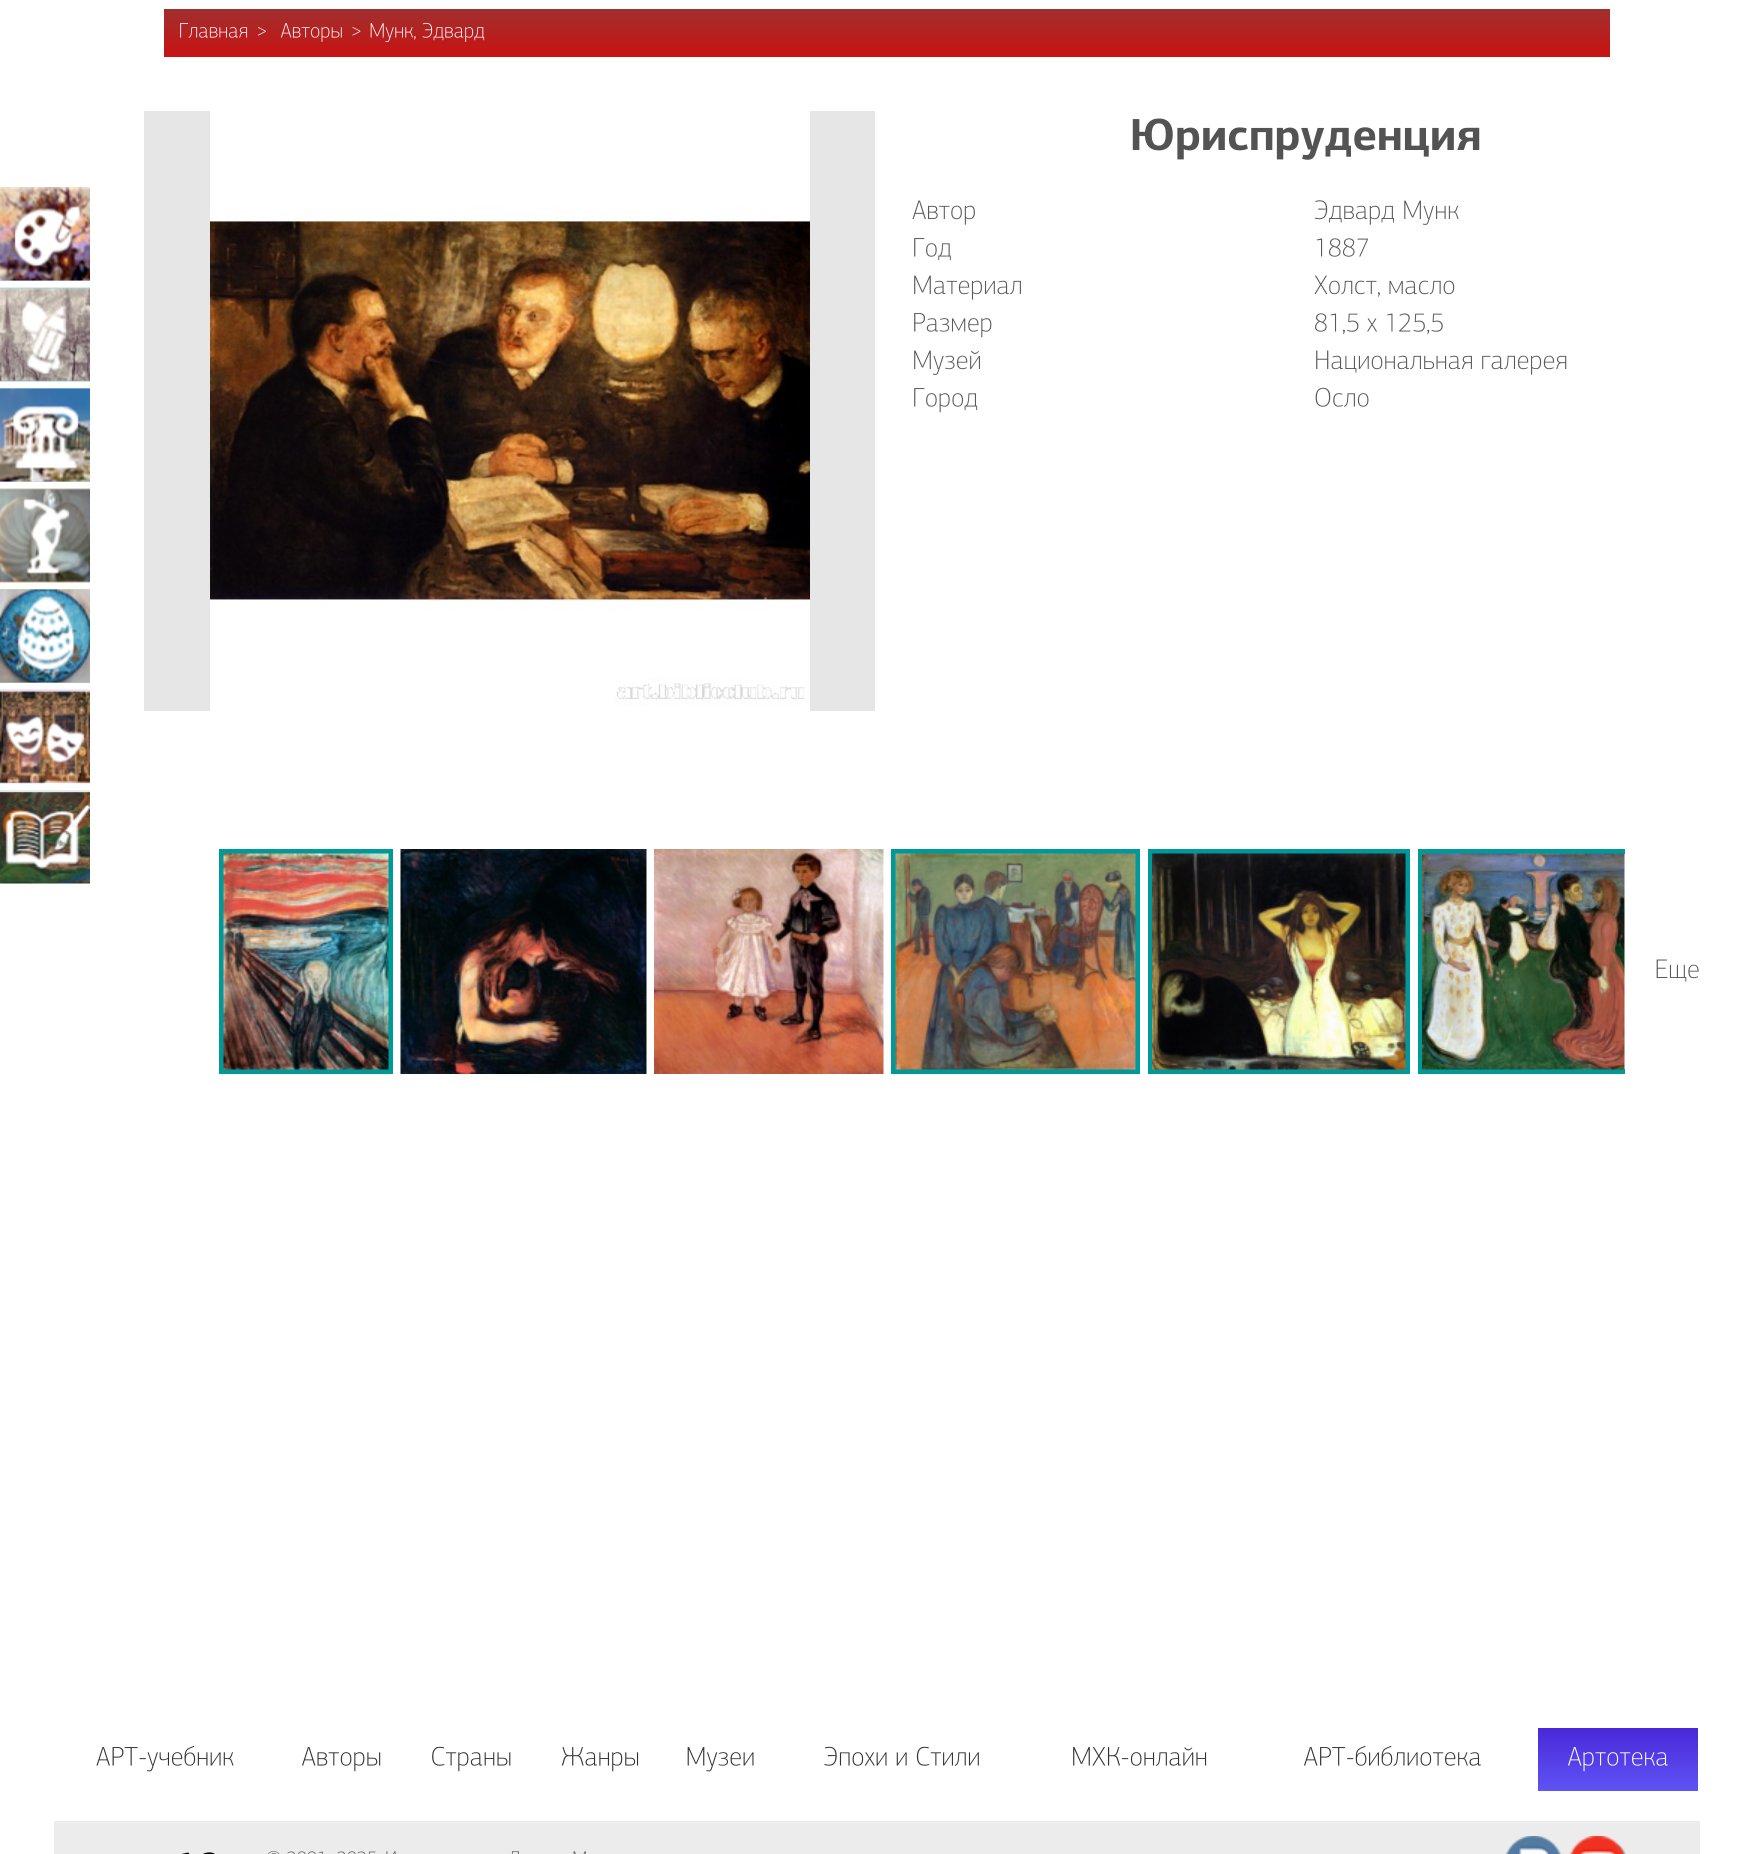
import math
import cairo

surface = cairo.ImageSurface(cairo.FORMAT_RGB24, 1753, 1854)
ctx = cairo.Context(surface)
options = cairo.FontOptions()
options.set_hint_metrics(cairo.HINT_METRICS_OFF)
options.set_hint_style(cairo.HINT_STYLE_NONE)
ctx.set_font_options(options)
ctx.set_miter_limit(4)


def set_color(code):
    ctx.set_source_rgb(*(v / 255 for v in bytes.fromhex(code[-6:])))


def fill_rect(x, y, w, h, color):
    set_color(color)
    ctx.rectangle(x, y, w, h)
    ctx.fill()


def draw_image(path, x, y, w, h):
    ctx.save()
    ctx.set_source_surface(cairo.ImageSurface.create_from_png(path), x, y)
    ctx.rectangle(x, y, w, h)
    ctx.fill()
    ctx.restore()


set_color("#ffffff")
ctx.paint()
draw_image("assets/img1.png", 0, 280, 90, 1)
draw_image("assets/img2.png", 0, 187, 90, 94)
draw_image("assets/img3.png", 0, 287, 90, 95)
draw_image("assets/img4.png", 0, 287, 90, 95)
draw_image("assets/img5.png", 0, 388, 90, 94)
draw_image("assets/img6.png", 0, 388, 90, 94)
draw_image("assets/img7.png", 0, 488, 90, 95)
draw_image("assets/img8.png", 0, 488, 90, 95)
draw_image("assets/img9.png", 0, 589, 90, 94)
draw_image("assets/img10.png", 0, 589, 90, 94)
draw_image("assets/img11.png", 0, 689, 90, 94)
draw_image("assets/img12.png", 0, 690, 90, 94)
draw_image("assets/img13.png", 0, 790, 90, 1)
draw_image("assets/img14.png", 0, 790, 90, 94)
gradient = cairo.LinearGradient(887, 9, 887, 57)
gradient.add_color_stop_rgba(0, 0.631, 0.184, 0.184, 1)
gradient.add_color_stop_rgba(1, 0.788, 0.071, 0.071, 1)
ctx.set_source(gradient)
ctx.rectangle(164, 9, 1446, 48)
ctx.fill()
draw_image("assets/img15.png", 180, 23, 68, 15)
draw_image("assets/img16.png", 258, 27, 8, 9)
draw_image("assets/img17.png", 280, 23, 62, 19)
draw_image("assets/img18.png", 352, 27, 9, 9)
draw_image("assets/img19.png", 370, 22, 115, 21)
fill_rect(144, 111, 731, 600, "#e6e6e6")
draw_image("assets/img20.png", 210, 111, 600, 600)
draw_image("assets/img21.png", 1132, 118, 348, 42)
draw_image("assets/img22.png", 912, 200, 63, 25)
draw_image("assets/img23.png", 1314, 200, 145, 25)
draw_image("assets/img24.png", 914, 238, 37, 23)
draw_image("assets/img25.png", 1316, 238, 52, 19)
draw_image("assets/img26.png", 914, 275, 107, 25)
draw_image("assets/img27.png", 1314, 275, 141, 22)
draw_image("assets/img28.png", 914, 313, 78, 25)
draw_image("assets/img29.png", 1315, 313, 128, 22)
draw_image("assets/img30.png", 914, 350, 66, 25)
draw_image("assets/img31.png", 1316, 350, 251, 25)
draw_image("assets/img32.png", 914, 388, 64, 25)
draw_image("assets/img33.png", 1315, 387, 54, 20)
ctx.rectangle(221.5, 851.5, 169, 220)
set_color("#009999")
ctx.set_line_width(5)
ctx.stroke()
draw_image("assets/img34.png", 223, 853, 166, 217)
draw_image("assets/img35.png", 400, 849, 247, 225)
draw_image("assets/img36.png", 654, 849, 230, 225)
ctx.rectangle(893.5, 851.5, 244, 220)
ctx.stroke()
draw_image("assets/img37.png", 895, 853, 241, 217)
ctx.rectangle(1150.5, 851.5, 257, 220)
ctx.stroke()
draw_image("assets/img38.png", 1152, 853, 254, 217)
draw_image("assets/img40.png", 1656, 959, 43, 23)
ctx.save()
ctx.rectangle(219, 849, 1406, 225)
ctx.clip()
ctx.rectangle(1420.5, 851.5, 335, 220)
ctx.stroke()
ctx.restore()
draw_image("assets/img39.png", 1422, 853, 203, 217)
draw_image("assets/img41.png", 96, 1745, 138, 27)
draw_image("assets/img42.png", 302, 1747, 79, 25)
draw_image("assets/img43.png", 432, 1746, 79, 26)
draw_image("assets/img44.png", 561, 1747, 78, 25)
draw_image("assets/img45.png", 687, 1747, 67, 25)
draw_image("assets/img46.png", 824, 1746, 155, 20)
draw_image("assets/img47.png", 1073, 1747, 134, 19)
draw_image("assets/img48.png", 1304, 1745, 177, 21)
gradient = cairo.LinearGradient(1618, 1728, 1618, 1791)
gradient.add_color_stop_rgba(0, 0.286, 0.157, 0.847, 1)
gradient.add_color_stop_rgba(1, 0.373, 0.329, 0.961, 1)
ctx.set_source(gradient)
ctx.rectangle(1538, 1728, 160, 63)
ctx.fill()
draw_image("assets/img49.png", 1568, 1747, 100, 25)
fill_rect(54, 1821, 1646, 33, "#ececec")
draw_image("assets/img50.png", 181, 1852, 34, 2)
draw_image("assets/img51.png", 268, 1851, 318, 3)
draw_image("assets/img52.png", 1505, 1836, 57, 18)
draw_image("assets/img53.png", 1569, 1836, 57, 18)
surface.write_to_png("output.png")
